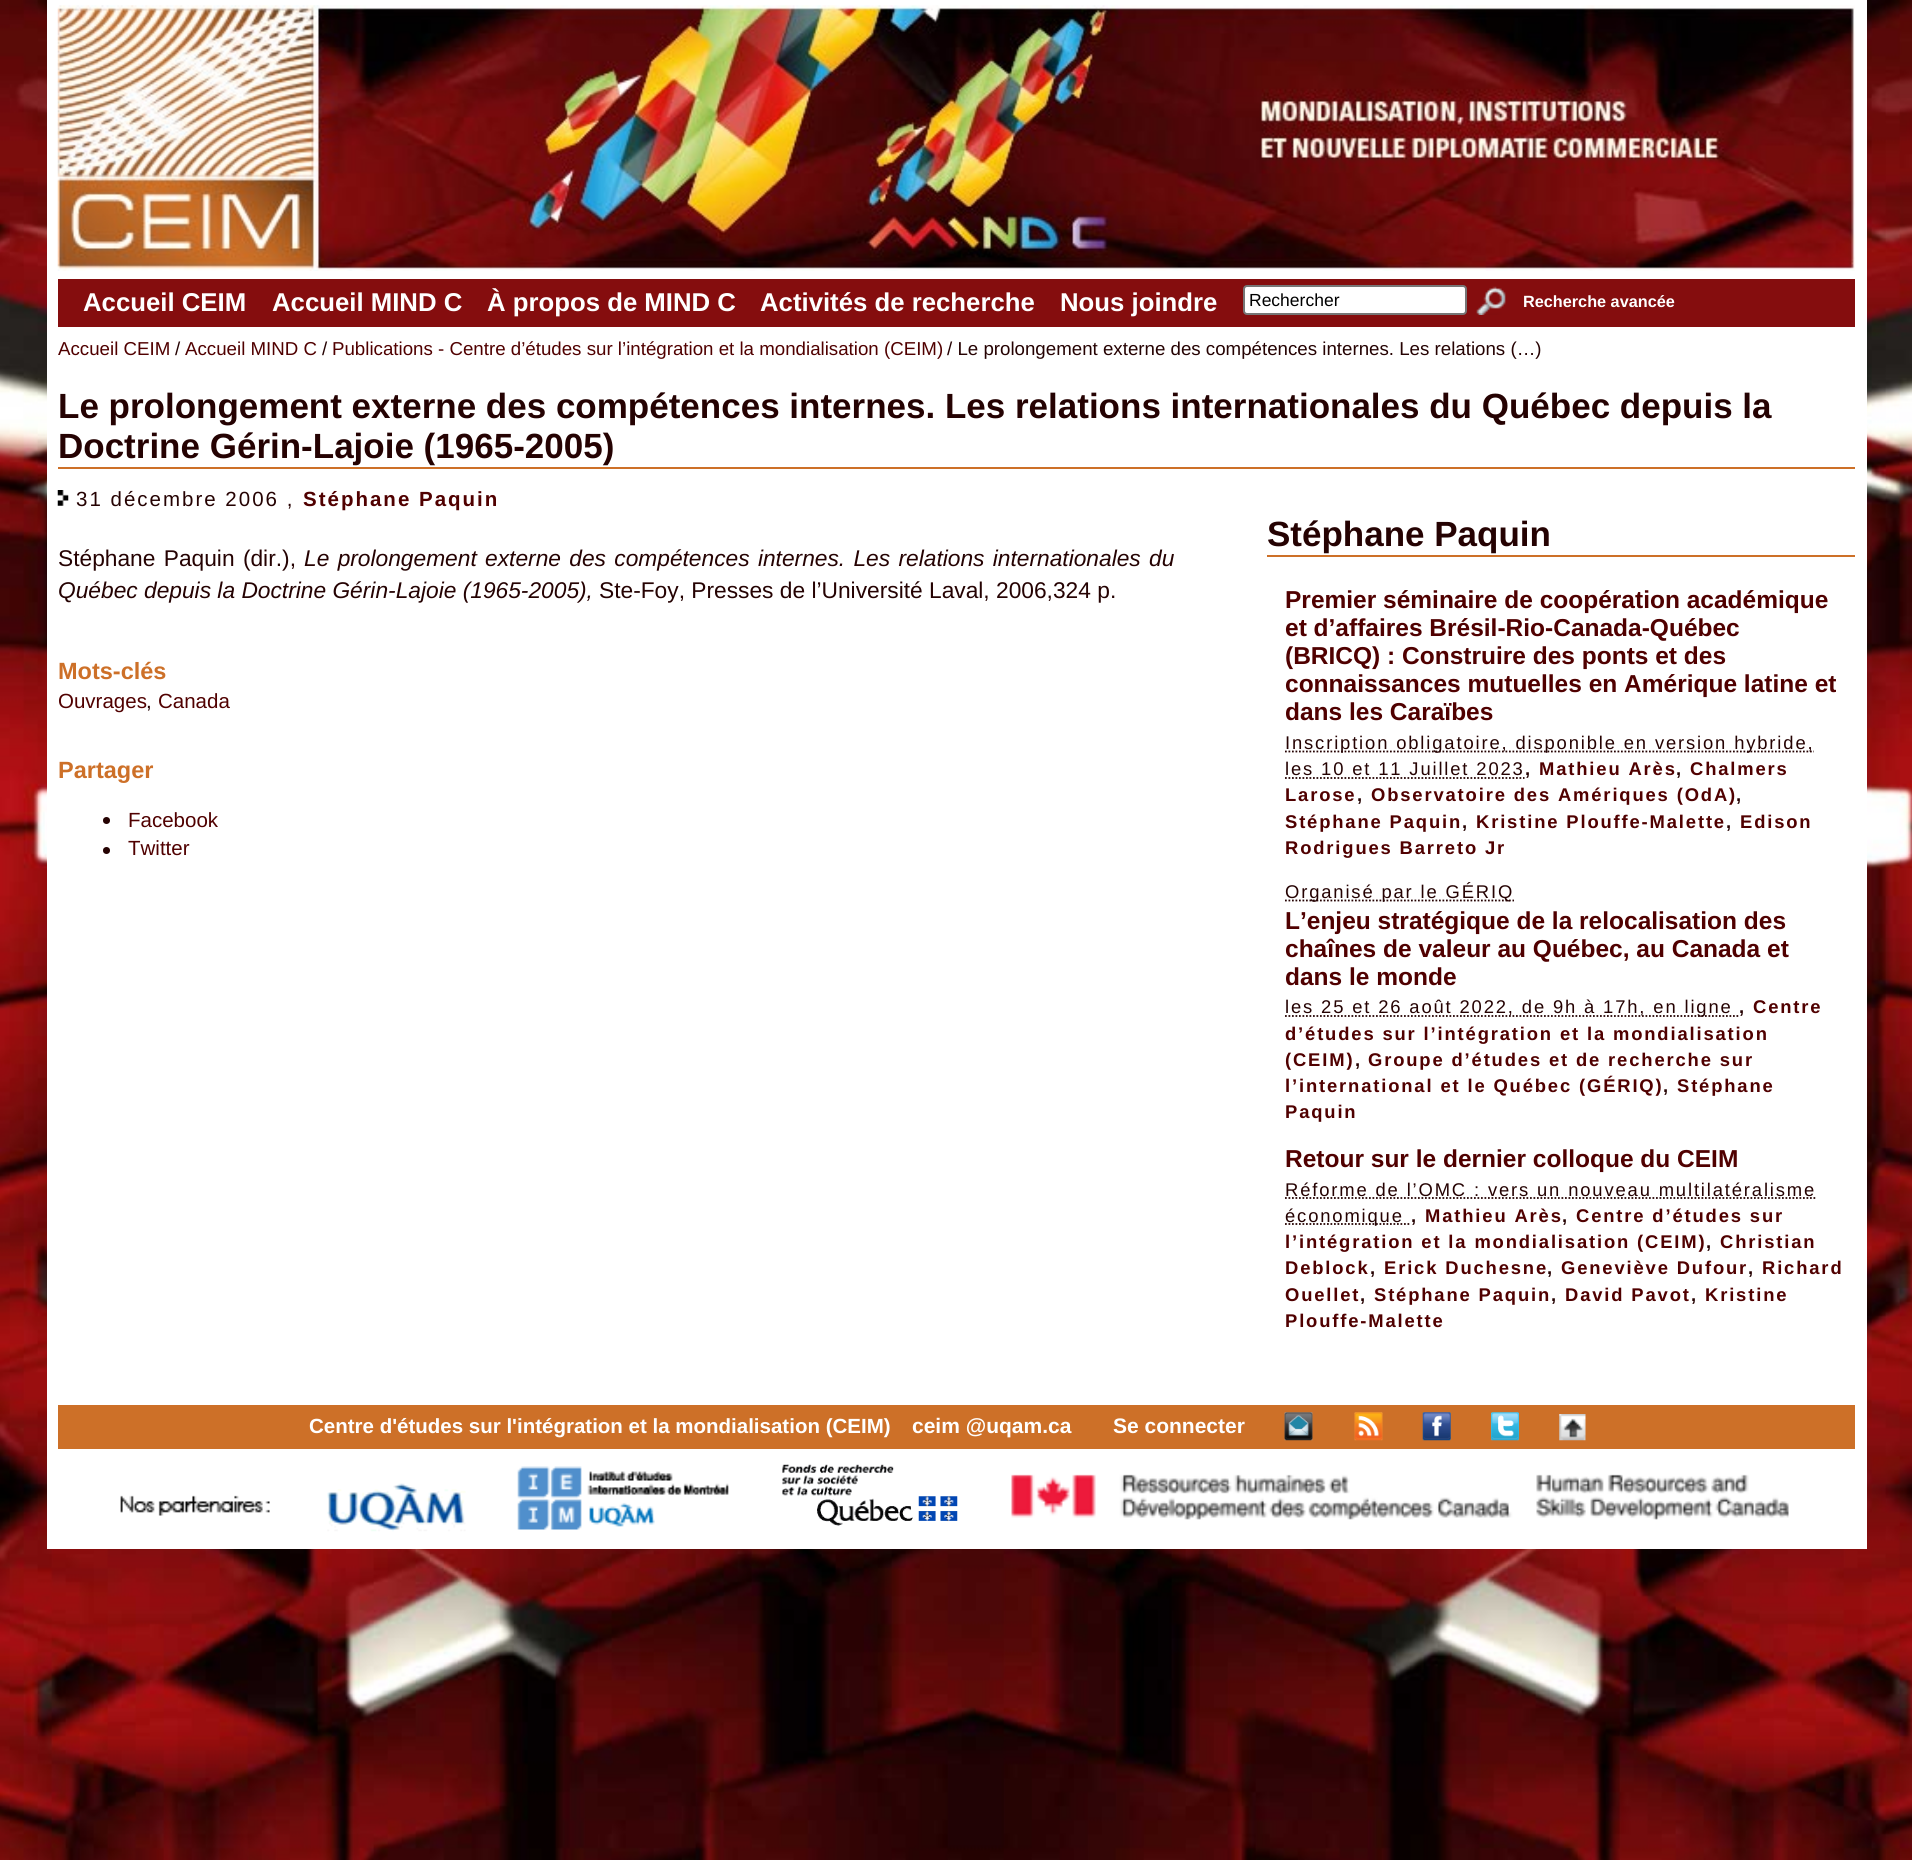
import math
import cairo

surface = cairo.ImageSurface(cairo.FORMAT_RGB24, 1912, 1860)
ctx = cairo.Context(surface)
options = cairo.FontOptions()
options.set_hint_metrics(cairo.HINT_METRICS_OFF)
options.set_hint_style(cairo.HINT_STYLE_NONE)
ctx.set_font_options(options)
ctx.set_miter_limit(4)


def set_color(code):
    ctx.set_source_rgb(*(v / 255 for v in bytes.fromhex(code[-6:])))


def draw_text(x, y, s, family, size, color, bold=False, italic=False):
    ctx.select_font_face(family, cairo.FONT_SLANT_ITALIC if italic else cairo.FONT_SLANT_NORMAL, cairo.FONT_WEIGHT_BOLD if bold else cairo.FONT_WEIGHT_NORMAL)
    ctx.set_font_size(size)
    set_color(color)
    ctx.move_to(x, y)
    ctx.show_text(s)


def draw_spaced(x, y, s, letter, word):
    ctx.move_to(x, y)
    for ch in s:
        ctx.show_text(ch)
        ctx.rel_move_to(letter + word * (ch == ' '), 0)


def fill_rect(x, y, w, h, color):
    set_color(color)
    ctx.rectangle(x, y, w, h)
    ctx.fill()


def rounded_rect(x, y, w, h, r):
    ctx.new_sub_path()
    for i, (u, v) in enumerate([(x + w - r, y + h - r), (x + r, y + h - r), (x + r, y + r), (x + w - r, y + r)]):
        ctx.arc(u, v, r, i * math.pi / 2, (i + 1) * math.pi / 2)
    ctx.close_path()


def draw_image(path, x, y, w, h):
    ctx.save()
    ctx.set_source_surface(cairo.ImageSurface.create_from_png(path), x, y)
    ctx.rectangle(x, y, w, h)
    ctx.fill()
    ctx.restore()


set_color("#ffffff")
ctx.paint()
draw_image("assets/img1.png", 0, 0, 1912, 1860)
fill_rect(47, 0, 1820, 1549, "#ffffff")
draw_image("assets/img2.png", 57, 5, 1798, 266)
fill_rect(58, 279, 1797, 48, "#850d0e")
draw_text(83, 311, "Accueil CEIM", "Liberation Sans", 25.75, "#ffffff", bold=True)
draw_text(272, 311, "Accueil MIND C", "Liberation Sans", 25.75, "#ffffff", bold=True)
draw_text(487, 311, "À propos de MIND C", "Liberation Sans", 25.75, "#ffffff", bold=True)
draw_text(760, 311, "Activités de recherche", "Liberation Sans", 25.75, "#ffffff", bold=True)
draw_text(1060, 311, "Nous joindre", "Liberation Sans", 25.75, "#ffffff", bold=True)
rounded_rect(1244, 286, 222, 28, 3)
ctx.fill_preserve()
set_color("#767676")
ctx.stroke()
draw_text(1249, 306, "Rechercher", "Liberation Sans", 17.5, "#000000")
draw_image("assets/img3.png", 1476, 286, 30, 29)
draw_text(1523, 307, "Recherche avancée", "Liberation Sans", 16.25, "#ffffff", bold=True)
draw_text(58, 355, "Accueil CEIM", "Liberation Sans", 18.7, "#500000")
draw_text(175, 355, "/", "Liberation Sans", 18.7, "#250202")
draw_text(185, 355, "Accueil MIND C", "Liberation Sans", 18.7, "#500000")
draw_text(322, 355, "/", "Liberation Sans", 18.7, "#250202")
draw_text(332, 355, "Publications - Centre d’études sur l’intégration et la mondialisation (CEIM)", "Liberation Sans", 18.7, "#500000")
draw_text(947, 355, "/ Le prolongement externe des compétences internes. Les relations (…)", "Liberation Sans", 18.7, "#250202")
fill_rect(58, 467, 1797, 2, "#cd7028")
draw_text(58, 418, "Le prolongement externe des compétences internes. Les relations internationales du Québec depuis la", "Liberation Sans", 35, "#250202", bold=True)
draw_text(58, 458, "Doctrine Gérin-Lajoie (1965-2005)", "Liberation Sans", 35, "#250202", bold=True)
draw_image("assets/img4.png", 57, 490, 12, 16)
ctx.select_font_face("Liberation Sans")
ctx.set_font_size(20.5)
draw_spaced(76, 506, "31 décembre 2006 ,", 2, 0)
ctx.select_font_face("Liberation Sans", cairo.FONT_SLANT_NORMAL, cairo.FONT_WEIGHT_BOLD)
set_color("#500000")
draw_spaced(303, 506, "Stéphane Paquin", 2, 0)
ctx.select_font_face("Liberation Sans")
ctx.set_font_size(22.75)
set_color("#250202")
draw_spaced(58, 566, "Stéphane Paquin (dir.),", 0, 2)
ctx.select_font_face("Liberation Sans", cairo.FONT_SLANT_ITALIC)
draw_spaced(304, 566, "Le prolongement externe des compétences internes. Les relations internationales du", 0, 2)
draw_text(58, 598, "Québec depuis la Doctrine Gérin-Lajoie (1965-2005),", "Liberation Sans", 22.75, "#250202", italic=True)
draw_text(599, 598, "Ste-Foy, Presses de l’Université Laval, 2006,324 p.", "Liberation Sans", 22.75, "#250202")
draw_text(58, 679, "Mots-clés", "Liberation Sans", 23.5, "#cd7028", bold=True)
draw_text(58, 708, "Ouvrages", "Liberation Sans", 20.5, "#500000")
draw_text(146, 708, ",", "Liberation Sans", 20.5, "#250202")
draw_text(158, 708, "Canada", "Liberation Sans", 20.5, "#500000")
draw_text(58, 778, "Partager", "Liberation Sans", 23.5, "#cd7028", bold=True)
set_color("#250202")
ctx.new_path()
ctx.arc(106.5, 820.5, 3.5, 0, 2 * math.pi)
ctx.fill()
draw_text(128, 827, "Facebook", "Liberation Sans", 20.5, "#500000")
set_color("#250202")
ctx.new_path()
ctx.arc(106.5, 850.5, 3.5, 0, 2 * math.pi)
ctx.fill()
draw_text(128, 855, "Twitter", "Liberation Sans", 20.5, "#500000")
fill_rect(1267, 555, 588, 2, "#cd7028")
draw_text(1267, 546, "Stéphane Paquin", "Liberation Sans", 35, "#250202", bold=True)
draw_text(1285, 608, "Premier séminaire de coopération académique", "Liberation Sans", 24.5, "#500000", bold=True)
draw_text(1285, 636, "et d’affaires Brésil-Rio-Canada-Québec", "Liberation Sans", 24.5, "#500000", bold=True)
draw_text(1285, 664, "(BRICQ) : Construire des ponts et des", "Liberation Sans", 24.5, "#500000", bold=True)
draw_text(1285, 692, "connaissances mutuelles en Amérique latine et", "Liberation Sans", 24.5, "#500000", bold=True)
draw_text(1285, 720, "dans les Caraïbes", "Liberation Sans", 24.5, "#500000", bold=True)
ctx.new_path()
ctx.move_to(1285, 751.5)
ctx.line_to(1814, 751.5)
set_color("#250202")
ctx.set_line_width(1.8)
ctx.set_dash([1.75, 1.75])
ctx.stroke()
ctx.select_font_face("Liberation Sans")
ctx.set_font_size(18.4)
draw_spaced(1285, 749, "Inscription obligatoire, disponible en version hybride,", 1.85, 0)
draw_spaced(1285, 775, "les 10 et 11 Juillet 2023", 1.85, 0)
ctx.new_path()
ctx.move_to(1285, 778)
ctx.line_to(1524.5, 778)
ctx.stroke()
ctx.select_font_face("Liberation Sans", cairo.FONT_SLANT_NORMAL, cairo.FONT_WEIGHT_BOLD)
draw_spaced(1525, 775, ",", 1.85, 0)
set_color("#500000")
draw_spaced(1539, 775, "Mathieu Arès", 1.85, 0)
set_color("#250202")
draw_spaced(1676, 775, ",", 1.85, 0)
set_color("#500000")
draw_spaced(1690, 775, "Chalmers", 1.85, 0)
draw_spaced(1285, 801, "Larose", 1.85, 0)
set_color("#250202")
draw_spaced(1357, 801, ",", 1.85, 0)
set_color("#500000")
draw_spaced(1371, 801, "Observatoire des Amériques (OdA)", 1.85, 0)
set_color("#250202")
draw_spaced(1736, 801, ",", 1.85, 0)
set_color("#500000")
draw_spaced(1285, 828, "Stéphane Paquin", 1.85, 0)
set_color("#250202")
draw_spaced(1462, 828, ",", 1.85, 0)
set_color("#500000")
draw_spaced(1476, 828, "Kristine Plouffe-Malette", 1.85, 0)
set_color("#250202")
draw_spaced(1726, 828, ",", 1.85, 0)
set_color("#500000")
draw_spaced(1740, 828, "Edison", 1.85, 0)
draw_spaced(1285, 854, "Rodrigues Barreto Jr", 1.85, 0)
ctx.new_path()
ctx.move_to(1285, 900.5)
ctx.line_to(1514, 900.5)
set_color("#250202")
ctx.stroke()
ctx.select_font_face("Liberation Sans")
draw_spaced(1285, 898, "Organisé par le GÉRIQ", 1.85, 0)
draw_text(1285, 929, "L’enjeu stratégique de la relocalisation des", "Liberation Sans", 24.5, "#500000", bold=True)
draw_text(1285, 957, "chaînes de valeur au Québec, au Canada et", "Liberation Sans", 24.5, "#500000", bold=True)
draw_text(1285, 985, "dans le monde", "Liberation Sans", 24.5, "#500000", bold=True)
ctx.new_path()
ctx.move_to(1285, 1016)
ctx.line_to(1739.5, 1016)
set_color("#250202")
ctx.stroke()
ctx.select_font_face("Liberation Sans")
ctx.set_font_size(18.4)
draw_spaced(1285, 1013, "les 25 et 26 août 2022, de 9h à 17h, en ligne", 1.85, 0)
ctx.select_font_face("Liberation Sans", cairo.FONT_SLANT_NORMAL, cairo.FONT_WEIGHT_BOLD)
draw_spaced(1739, 1013, ",", 1.85, 0)
set_color("#500000")
draw_spaced(1753, 1013, "Centre", 1.85, 0)
draw_spaced(1285, 1040, "d’études sur l’intégration et la mondialisation", 1.85, 0)
draw_spaced(1285, 1066, "(CEIM)", 1.85, 0)
set_color("#250202")
draw_spaced(1355, 1066, ",", 1.85, 0)
set_color("#500000")
draw_spaced(1368, 1066, "Groupe d’études et de recherche sur", 1.85, 0)
draw_spaced(1285, 1092, "l’international et le Québec (GÉRIQ)", 1.85, 0)
set_color("#250202")
draw_spaced(1663, 1092, ",", 1.85, 0)
set_color("#500000")
draw_spaced(1677, 1092, "Stéphane", 1.85, 0)
draw_spaced(1285, 1118, "Paquin", 1.85, 0)
draw_text(1285, 1167, "Retour sur le dernier colloque du CEIM", "Liberation Sans", 24.5, "#500000", bold=True)
ctx.select_font_face("Liberation Sans")
ctx.set_font_size(18.4)
set_color("#250202")
draw_spaced(1285, 1196, "Réforme de l’OMC : vers un nouveau multilatéralisme", 1.85, 0)
ctx.new_path()
ctx.move_to(1285, 1198)
ctx.line_to(1816, 1198)
ctx.stroke()
ctx.new_path()
ctx.move_to(1285, 1224)
ctx.line_to(1411, 1224)
ctx.stroke()
draw_spaced(1285, 1222, "économique", 1.85, 0)
ctx.select_font_face("Liberation Sans", cairo.FONT_SLANT_NORMAL, cairo.FONT_WEIGHT_BOLD)
draw_spaced(1411, 1222, ",", 1.85, 0)
set_color("#500000")
draw_spaced(1425, 1222, "Mathieu Arès", 1.85, 0)
set_color("#250202")
draw_spaced(1562, 1222, ",", 1.85, 0)
set_color("#500000")
draw_spaced(1576, 1222, "Centre d’études sur", 1.85, 0)
draw_spaced(1285, 1248, "l’intégration et la mondialisation (CEIM)", 1.85, 0)
set_color("#250202")
draw_spaced(1706, 1248, ",", 1.85, 0)
set_color("#500000")
draw_spaced(1720, 1248, "Christian", 1.85, 0)
draw_spaced(1285, 1274, "Deblock", 1.85, 0)
set_color("#250202")
draw_spaced(1370, 1274, ",", 1.85, 0)
set_color("#500000")
draw_spaced(1384, 1274, "Erick Duchesne", 1.85, 0)
set_color("#250202")
draw_spaced(1547, 1274, ",", 1.85, 0)
set_color("#500000")
draw_spaced(1561, 1274, "Geneviève Dufour", 1.85, 0)
set_color("#250202")
draw_spaced(1748, 1274, ",", 1.85, 0)
set_color("#500000")
draw_spaced(1762, 1274, "Richard", 1.85, 0)
draw_spaced(1285, 1301, "Ouellet", 1.85, 0)
set_color("#250202")
draw_spaced(1360, 1301, ",", 1.85, 0)
set_color("#500000")
draw_spaced(1374, 1301, "Stéphane Paquin", 1.85, 0)
set_color("#250202")
draw_spaced(1551, 1301, ",", 1.85, 0)
set_color("#500000")
draw_spaced(1565, 1301, "David Pavot", 1.85, 0)
set_color("#250202")
draw_spaced(1691, 1301, ",", 1.85, 0)
set_color("#500000")
draw_spaced(1705, 1301, "Kristine", 1.85, 0)
draw_spaced(1285, 1327, "Plouffe-Malette", 1.85, 0)
fill_rect(58, 1405, 1797, 44, "#cd7028")
draw_text(309, 1433, "Centre d'études sur l'intégration et la mondialisation (CEIM)", "Liberation Sans", 20.5, "#ffffff", bold=True)
draw_text(912, 1433, "ceim @uqam.ca", "Liberation Sans", 21, "#ffffff", bold=True)
draw_text(1113, 1433, "Se connecter", "Liberation Sans", 21, "#ffffff", bold=True)
draw_image("assets/img5.png", 1284, 1412, 29, 29)
draw_image("assets/img6.png", 1354, 1412, 29, 29)
draw_image("assets/img7.png", 1422, 1412, 29, 29)
draw_image("assets/img8.png", 1491, 1412, 28, 29)
draw_image("assets/img9.png", 1559, 1414, 27, 27)
draw_image("assets/img10.png", 120, 1495, 150, 21)
draw_image("assets/img11.png", 327, 1483, 139, 49)
draw_image("assets/img12.png", 517, 1466, 212, 64)
draw_image("assets/img13.png", 782, 1464, 176, 62)
draw_image("assets/img14.png", 1011, 1474, 778, 46)
surface.write_to_png("output.png")
